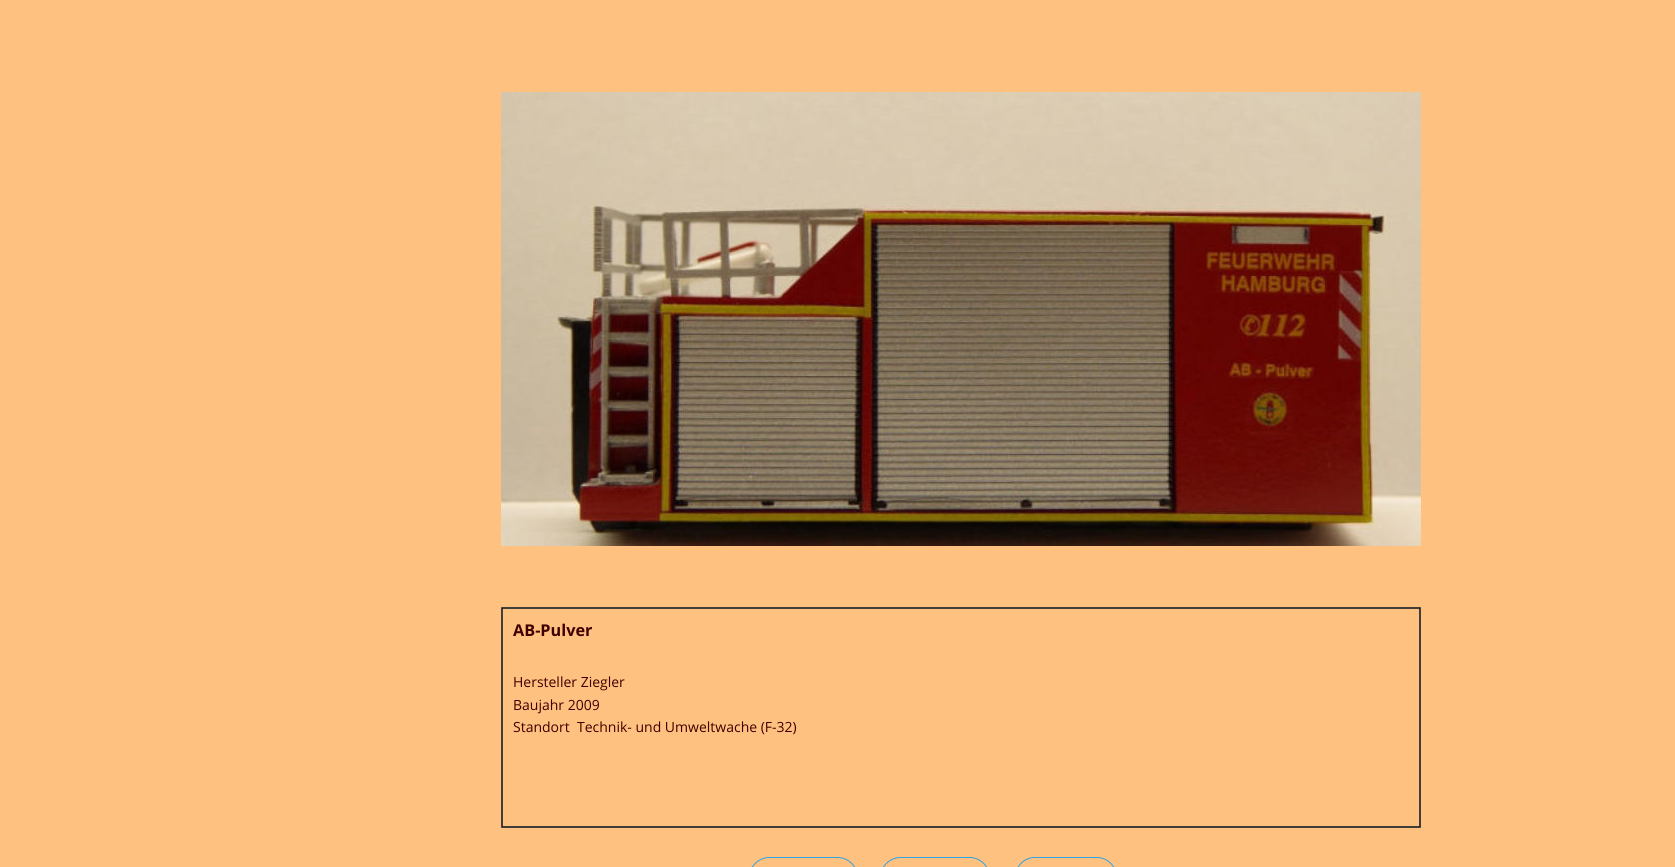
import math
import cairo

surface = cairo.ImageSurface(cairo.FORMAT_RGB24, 1675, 867)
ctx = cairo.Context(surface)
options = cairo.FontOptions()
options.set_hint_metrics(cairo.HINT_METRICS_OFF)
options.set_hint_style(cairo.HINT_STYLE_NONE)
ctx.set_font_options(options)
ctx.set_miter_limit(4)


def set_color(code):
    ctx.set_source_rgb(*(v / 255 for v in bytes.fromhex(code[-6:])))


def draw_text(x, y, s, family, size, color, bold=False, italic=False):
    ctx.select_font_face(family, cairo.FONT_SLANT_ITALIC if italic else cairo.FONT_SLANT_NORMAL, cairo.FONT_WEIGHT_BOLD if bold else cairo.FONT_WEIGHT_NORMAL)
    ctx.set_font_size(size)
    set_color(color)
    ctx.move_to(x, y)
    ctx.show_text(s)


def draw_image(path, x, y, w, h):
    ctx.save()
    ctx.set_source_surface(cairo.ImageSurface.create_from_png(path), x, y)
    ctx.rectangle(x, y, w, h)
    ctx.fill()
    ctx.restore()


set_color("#ffc17f")
ctx.paint()
draw_image("assets/img1.png", 501, 92, 920, 454)
draw_image("assets/img2.png", 501, 607, 920, 221)
draw_text(513, 636, "AB-Pulver", "Open Sans", 16.25, "#400000", bold=True)
draw_text(513, 687, "Hersteller Ziegler", "Open Sans", 14, "#400000")
draw_text(513, 710, "Baujahr 2009", "Open Sans", 14, "#400000")
draw_text(513, 732, "Standort  Technik- und Umweltwache (F-32)", "Open Sans", 14, "#400000")
draw_image("assets/img3.png", 751, 857, 105, 10)
draw_image("assets/img4.png", 883, 857, 105, 10)
draw_image("assets/img5.png", 1017, 857, 98, 10)
surface.write_to_png("output.png")
